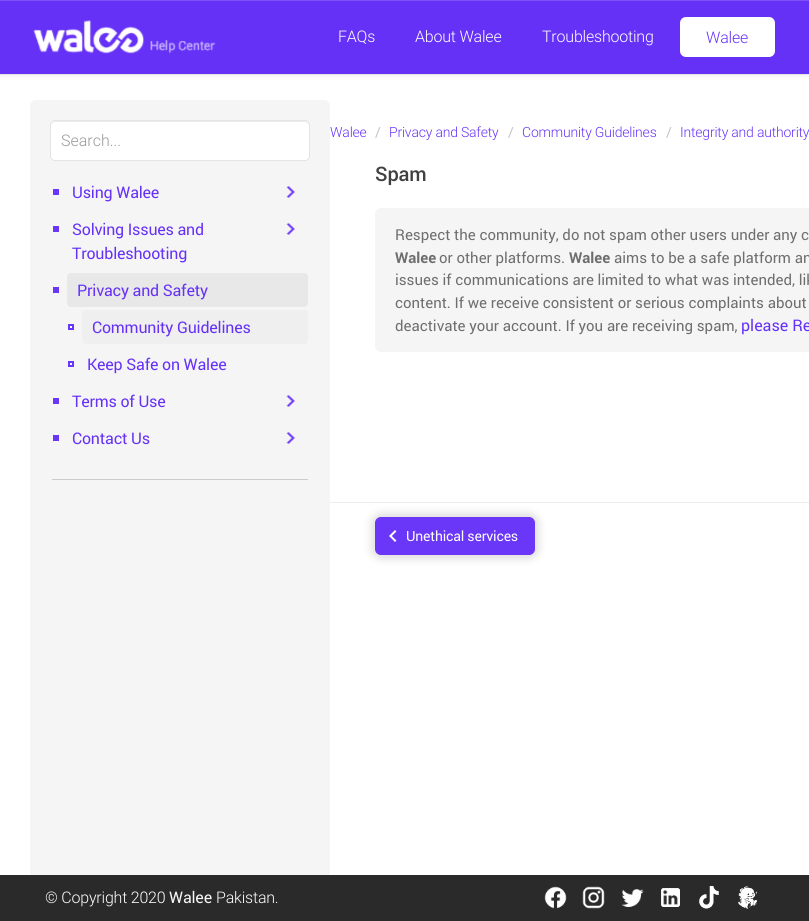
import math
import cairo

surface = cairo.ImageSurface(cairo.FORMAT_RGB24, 809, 921)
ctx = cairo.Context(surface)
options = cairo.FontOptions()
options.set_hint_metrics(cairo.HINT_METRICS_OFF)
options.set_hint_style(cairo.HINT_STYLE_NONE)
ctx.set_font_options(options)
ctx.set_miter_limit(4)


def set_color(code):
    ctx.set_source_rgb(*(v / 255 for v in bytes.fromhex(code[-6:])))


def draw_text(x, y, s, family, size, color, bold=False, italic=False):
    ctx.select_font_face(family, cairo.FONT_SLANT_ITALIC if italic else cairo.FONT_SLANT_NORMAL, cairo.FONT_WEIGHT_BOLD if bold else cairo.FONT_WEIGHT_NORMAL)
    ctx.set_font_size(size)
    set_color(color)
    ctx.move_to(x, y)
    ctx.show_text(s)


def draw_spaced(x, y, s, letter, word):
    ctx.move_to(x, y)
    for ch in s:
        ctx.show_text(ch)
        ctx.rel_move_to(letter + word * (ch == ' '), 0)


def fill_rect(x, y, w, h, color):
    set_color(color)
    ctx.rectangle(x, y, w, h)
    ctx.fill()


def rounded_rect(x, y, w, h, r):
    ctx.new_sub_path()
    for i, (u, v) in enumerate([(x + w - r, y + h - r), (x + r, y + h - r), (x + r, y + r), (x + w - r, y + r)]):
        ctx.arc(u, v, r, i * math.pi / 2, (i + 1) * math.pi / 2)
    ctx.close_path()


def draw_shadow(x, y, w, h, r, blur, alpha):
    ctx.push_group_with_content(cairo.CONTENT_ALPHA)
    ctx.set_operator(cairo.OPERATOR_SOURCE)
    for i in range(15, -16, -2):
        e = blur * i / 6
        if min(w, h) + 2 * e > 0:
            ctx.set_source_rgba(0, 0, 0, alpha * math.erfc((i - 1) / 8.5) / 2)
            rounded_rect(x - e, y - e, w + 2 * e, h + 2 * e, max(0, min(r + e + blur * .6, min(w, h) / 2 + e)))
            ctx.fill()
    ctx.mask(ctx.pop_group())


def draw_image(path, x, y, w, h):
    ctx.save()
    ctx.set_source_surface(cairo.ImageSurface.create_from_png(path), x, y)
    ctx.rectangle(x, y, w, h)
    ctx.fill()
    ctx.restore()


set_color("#ffffff")
ctx.paint()
set_color("#000000")
draw_shadow(0, 1, 809, 75, 0, 2.5, 0.07)
fill_rect(0, 1, 809, 73, "#6631f7")
fill_rect(0, 0, 809, 1, "#7d50f8")
fill_rect(0, 74, 809, 1, "#e7e7e7")
draw_image("assets/img1.png", 33, 20, 183, 34)
ctx.select_font_face("Roboto Light")
ctx.set_font_size(16)
set_color("#ffffff")
draw_spaced(338, 42, "FAQs", -0.2, 0)
draw_spaced(415, 42, "About Walee", -0.2, 0)
draw_spaced(542, 42, "Troubleshooting", -0.2, 0)
rounded_rect(680, 17, 95, 40, 6)
ctx.fill()
set_color("#6631f7")
draw_spaced(706, 43, "Walee", -0.2, 0)
ctx.set_font_size(14)
draw_spaced(330, 137, "Walee", -0.2, 0)
set_color("#f5f5f5")
rounded_rect(30, 100, 300, 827, 6)
ctx.fill()
set_color("#ffffff")
rounded_rect(50, 120, 260, 41, 5)
ctx.fill()
set_color("#ececec")
ctx.new_path()
ctx.move_to(55, 122)
ctx.line_to(305, 122)
ctx.curve_to(307, 122, 309, 124, 309, 126)
ctx.line_to(309, 125)
ctx.curve_to(309, 123, 307, 121, 305, 121)
ctx.line_to(55, 121)
ctx.curve_to(53, 121, 51, 123, 51, 125)
ctx.line_to(51, 126)
ctx.curve_to(51, 124, 53, 122, 55, 122)
ctx.close_path()
ctx.fill()
rounded_rect(50.5, 120.5, 259, 40, 4.5)
set_color("#e4e4e4")
ctx.set_line_width(1)
ctx.stroke()
draw_text(61, 146, "Search...", "Roboto Light", 16, "#999999")
fill_rect(53, 189, 6, 6, "#6a36f7")
ctx.select_font_face("Roboto")
set_color("#6631f7")
draw_spaced(72, 198, "Using Walee", -0.2, 0)
draw_image("assets/img2.png", 286, 186, 9, 12)
fill_rect(53, 226, 6, 6, "#6a36f7")
set_color("#6631f7")
draw_spaced(72, 235, "Solving Issues and", -0.2, 0)
draw_image("assets/img2.png", 286, 223, 9, 12)
draw_spaced(72, 259, "Troubleshooting", -0.2, 0)
fill_rect(53, 287, 6, 6, "#6a36f7")
set_color("#e8e8e8")
rounded_rect(67, 273, 241, 34, 4)
ctx.fill()
set_color("#6631f7")
draw_spaced(77, 296, "Privacy and Safety", -0.2, 0)
set_color("#ffffff")
ctx.rectangle(69, 325, 4, 4)
ctx.fill_preserve()
set_color("#6a36f7")
ctx.set_line_width(2)
ctx.stroke()
set_color("#efefef")
rounded_rect(82, 310, 226, 34, 4)
ctx.fill()
set_color("#6631f7")
draw_spaced(92, 333, "Community Guidelines", -0.2, 0)
set_color("#ffffff")
ctx.rectangle(69, 362, 4, 4)
ctx.fill_preserve()
set_color("#6a36f7")
ctx.stroke()
set_color("#6631f7")
draw_spaced(87, 370, "Keep Safe on Walee", -0.2, 0)
fill_rect(53, 398, 6, 6, "#6a36f7")
set_color("#6631f7")
draw_spaced(72, 407, "Terms of Use", -0.2, 0)
draw_image("assets/img2.png", 286, 395, 9, 12)
fill_rect(53, 435, 6, 6, "#6a36f7")
set_color("#6631f7")
draw_spaced(72, 444, "Contact Us", -0.2, 0)
draw_image("assets/img2.png", 286, 432, 9, 12)
fill_rect(52, 479, 256, 1, "#cccccc")
ctx.set_font_size(14)
set_color("#c3c3c3")
draw_spaced(375, 137, "/", -0.2, 0)
ctx.select_font_face("Roboto Light")
set_color("#6631f7")
draw_spaced(389, 137, "Privacy and Safety", -0.2, 0)
ctx.select_font_face("Roboto")
set_color("#c3c3c3")
draw_spaced(508, 137, "/", -0.2, 0)
ctx.select_font_face("Roboto Light")
set_color("#6631f7")
draw_spaced(522, 137, "Community Guidelines", -0.2, 0)
ctx.select_font_face("Roboto")
set_color("#c3c3c3")
draw_spaced(666, 137, "/", -0.2, 0)
ctx.select_font_face("Roboto Light")
set_color("#6631f7")
draw_spaced(680, 137, "Integrity and authority", -0.2, 0)
ctx.select_font_face("Roboto Medium")
ctx.set_font_size(20)
set_color("#404040")
draw_spaced(375, 181, "Spam", -0.2, 0)
set_color("#f5f5f5")
rounded_rect(375, 208, 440, 144, 6)
ctx.fill()
draw_text(395, 240, "Respect the community, do not spam other users under any c", "Roboto", 15, "#6e6e6e")
draw_text(395, 263, "Walee", "Roboto", 15, "#6e6e6e", bold=True)
draw_text(439, 263, "or other platforms.", "Roboto", 15, "#6e6e6e")
draw_text(569, 263, "Walee", "Roboto", 15, "#6e6e6e", bold=True)
draw_text(614, 263, "aims to be a safe platform an", "Roboto", 15, "#6e6e6e")
draw_text(395, 285, "issues if communications are limited to what was intended, lik", "Roboto", 15, "#6e6e6e")
draw_text(395, 308, "content. If we receive consistent or serious complaints about", "Roboto", 15, "#6e6e6e")
draw_text(395, 331, "deactivate your account. If you are receiving spam,", "Roboto", 15, "#6e6e6e")
draw_text(741, 331, "please Re", "Roboto", 16, "#6631f7")
fill_rect(330, 502, 479, 1, "#ececec")
set_color("#e0e0e0")
draw_shadow(371, 513, 168, 46, 10, 4, 1)
set_color("#6a36f7")
rounded_rect(375.5, 517.5, 159, 37, 5.5)
ctx.fill_preserve()
ctx.set_line_width(1)
ctx.stroke()
draw_image("assets/img3.png", 389, 530, 8, 12)
ctx.set_font_size(14)
set_color("#ffffff")
draw_spaced(406, 541, "Unethical services", -0.2, 0)
fill_rect(0, 875, 809, 46, "#2a2a2a")
ctx.select_font_face("Roboto Light")
ctx.set_font_size(16)
set_color("#ffffff")
draw_spaced(45, 903, "© Copyright 2020", -0.2, 0)
ctx.select_font_face("Roboto")
set_color("#f5f5f5")
draw_spaced(169, 903, "Walee", -0.2, 0)
ctx.select_font_face("Roboto Light")
set_color("#ffffff")
draw_spaced(216, 903, "Pakistan.", -0.2, 0)
draw_image("assets/img4.png", 544, 886, 23, 23)
draw_image("assets/img5.png", 582, 886, 23, 23)
draw_image("assets/img6.png", 621, 889, 23, 18)
draw_image("assets/img7.png", 661, 888, 19, 19)
draw_image("assets/img8.png", 699, 886, 20, 23)
draw_image("assets/img9.png", 738, 886, 20, 23)
surface.write_to_png("output.png")
